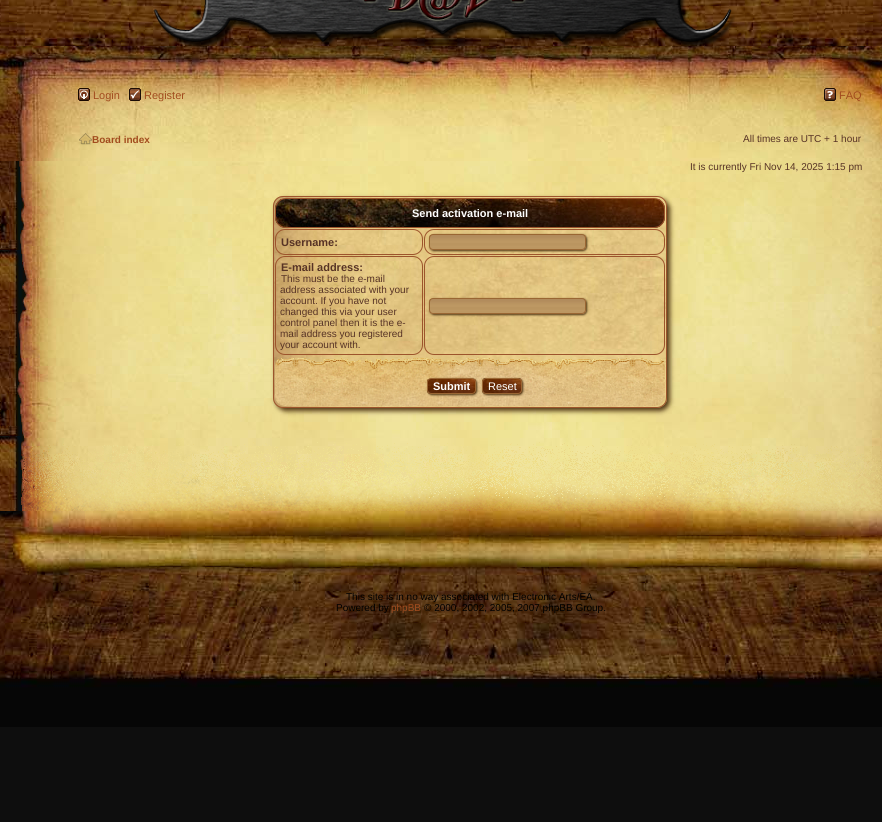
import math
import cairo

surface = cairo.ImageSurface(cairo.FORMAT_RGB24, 882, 822)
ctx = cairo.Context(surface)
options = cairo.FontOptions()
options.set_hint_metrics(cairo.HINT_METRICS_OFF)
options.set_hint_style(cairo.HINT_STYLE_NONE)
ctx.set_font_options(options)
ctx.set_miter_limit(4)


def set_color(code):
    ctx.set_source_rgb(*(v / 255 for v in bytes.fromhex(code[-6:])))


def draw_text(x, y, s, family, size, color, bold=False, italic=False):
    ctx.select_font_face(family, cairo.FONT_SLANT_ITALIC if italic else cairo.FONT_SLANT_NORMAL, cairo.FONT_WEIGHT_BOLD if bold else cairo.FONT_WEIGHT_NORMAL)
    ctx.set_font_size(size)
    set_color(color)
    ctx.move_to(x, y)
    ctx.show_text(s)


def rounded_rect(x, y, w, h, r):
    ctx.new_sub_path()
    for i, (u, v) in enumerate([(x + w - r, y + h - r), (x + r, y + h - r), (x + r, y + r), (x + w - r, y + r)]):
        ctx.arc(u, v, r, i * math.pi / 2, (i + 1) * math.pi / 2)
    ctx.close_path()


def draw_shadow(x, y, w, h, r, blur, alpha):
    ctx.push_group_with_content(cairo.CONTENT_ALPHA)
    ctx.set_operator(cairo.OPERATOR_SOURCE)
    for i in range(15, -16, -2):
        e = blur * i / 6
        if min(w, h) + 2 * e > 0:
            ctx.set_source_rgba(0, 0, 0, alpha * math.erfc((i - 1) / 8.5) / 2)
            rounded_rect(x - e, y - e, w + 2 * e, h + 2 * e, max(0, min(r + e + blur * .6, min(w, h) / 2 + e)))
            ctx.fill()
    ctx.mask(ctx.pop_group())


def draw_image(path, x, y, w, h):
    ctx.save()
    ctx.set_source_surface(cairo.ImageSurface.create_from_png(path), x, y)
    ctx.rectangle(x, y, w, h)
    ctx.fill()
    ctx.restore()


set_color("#ffffff")
ctx.paint()
draw_image("assets/img1.png", 0, 161, 26, 350)
draw_image("assets/img3.png", 0, 0, 882, 46)
draw_image("assets/img5.png", 0, 46, 882, 115)
draw_image("assets/img2.png", 153, 0, 582, 49)
draw_image("assets/img4.png", 17, 161, 865, 338)
draw_image("assets/img6.png", 21, 442, 861, 69)
draw_image("assets/img7.png", 78, 88, 12, 13)
draw_text(93, 99, "Login", "Liberation Sans", 11, "#a24c1e")
draw_image("assets/img8.png", 129, 88, 12, 13)
draw_text(144, 99, "Register", "Liberation Sans", 11, "#a24c1e")
draw_image("assets/img9.png", 824, 88, 12, 13)
draw_text(839, 99, "FAQ", "Liberation Sans", 11, "#a24c1e")
draw_image("assets/img10.png", 79, 133, 13, 12)
draw_text(92, 143, "Board index", "Liberation Sans", 10, "#a24c1e", bold=True)
draw_text(743, 142, "All times are UTC + 1 hour", "Liberation Sans", 10, "#573325")
draw_text(690, 170, "It is currently Fri Nov 14, 2025 1:15 pm", "Liberation Sans", 10, "#573325")
set_color("#4f3514")
draw_shadow(276, 199, 394, 212, 10, 2.5, 1)
draw_image("assets/img11.png", 273, 196, 394, 212)
rounded_rect(273.5, 196.5, 393, 211, 9.5)
set_color("#9c542c")
ctx.set_line_width(1)
ctx.stroke()
draw_image("assets/img12.png", 275, 199, 390, 29)
rounded_rect(275.5, 198.5, 389, 29, 10.5)
ctx.stroke()
draw_text(412, 217, "Send activation e-mail", "Liberation Sans", 11, "#ffffff", bold=True)
rounded_rect(275.5, 229.5, 147, 25, 9.5)
set_color("#9c542c")
ctx.stroke()
draw_text(281, 246, "Username:", "Liberation Sans", 11, "#573325", bold=True)
rounded_rect(424.5, 229.5, 240, 25, 9.5)
set_color("#9c542c")
ctx.stroke()
set_color("#4f3514")
draw_shadow(430, 235, 157, 16, 4, 1, 1)
draw_image("assets/img13.png", 429, 235, 157, 15)
rounded_rect(429.5, 234.5, 156, 15, 3.5)
set_color("#996633")
ctx.stroke()
rounded_rect(275.5, 256.5, 147, 98, 9.5)
set_color("#9c542c")
ctx.stroke()
draw_text(281, 271, "E-mail address:", "Liberation Sans", 11, "#573325", bold=True)
draw_text(281, 282, "This must be the e-mail", "Liberation Sans", 10, "#573325")
draw_text(280, 293, "address associated with your", "Liberation Sans", 10, "#573325")
draw_text(280, 304, "account. If you have not", "Liberation Sans", 10, "#573325")
draw_text(280, 315, "changed this via your user", "Liberation Sans", 10, "#573325")
draw_text(280, 326, "control panel then it is the e-", "Liberation Sans", 10, "#573325")
draw_text(280, 337, "mail address you registered", "Liberation Sans", 10, "#573325")
draw_text(280, 348, "your account with.", "Liberation Sans", 10, "#573325")
rounded_rect(424.5, 256.5, 240, 98, 9.5)
set_color("#9c542c")
ctx.stroke()
set_color("#4f3514")
draw_shadow(430, 299, 157, 16, 4, 1, 1)
draw_image("assets/img14.png", 429, 299, 157, 15)
rounded_rect(429.5, 298.5, 156, 15, 3.5)
set_color("#996633")
ctx.stroke()
draw_image("assets/img15.png", 275, 357, 390, 49)
set_color("#4f3514")
draw_shadow(428, 379, 49, 16, 4, 1, 1)
draw_image("assets/img16.png", 427, 379, 49, 15)
rounded_rect(427.5, 378.5, 48, 15, 3.5)
set_color("#996633")
ctx.stroke()
draw_text(433, 390, "Submit", "Liberation Sans", 11, "#ffffff", bold=True)
set_color("#4f3514")
draw_shadow(483, 379, 40, 16, 4, 1, 1)
draw_image("assets/img17.png", 482, 378, 40, 16)
rounded_rect(482.5, 378.5, 39, 15, 3.5)
set_color("#996633")
ctx.stroke()
draw_text(488, 390, "Reset", "Liberation Sans", 11, "#ffffff")
draw_image("assets/img18.png", 0, 511, 882, 311)
draw_text(346, 600, "This site is in no way associated with Electronic Arts/EA.", "Liberation Sans", 10, "#000000")
draw_text(336, 611, "Powered by", "Liberation Sans", 10, "#000000")
draw_text(391, 611, "phpBB", "Liberation Sans", 10, "#a24c1e")
draw_text(424, 611, "© 2000, 2002, 2005, 2007 phpBB Group.", "Liberation Sans", 10, "#000000")
surface.write_to_png("output.png")
